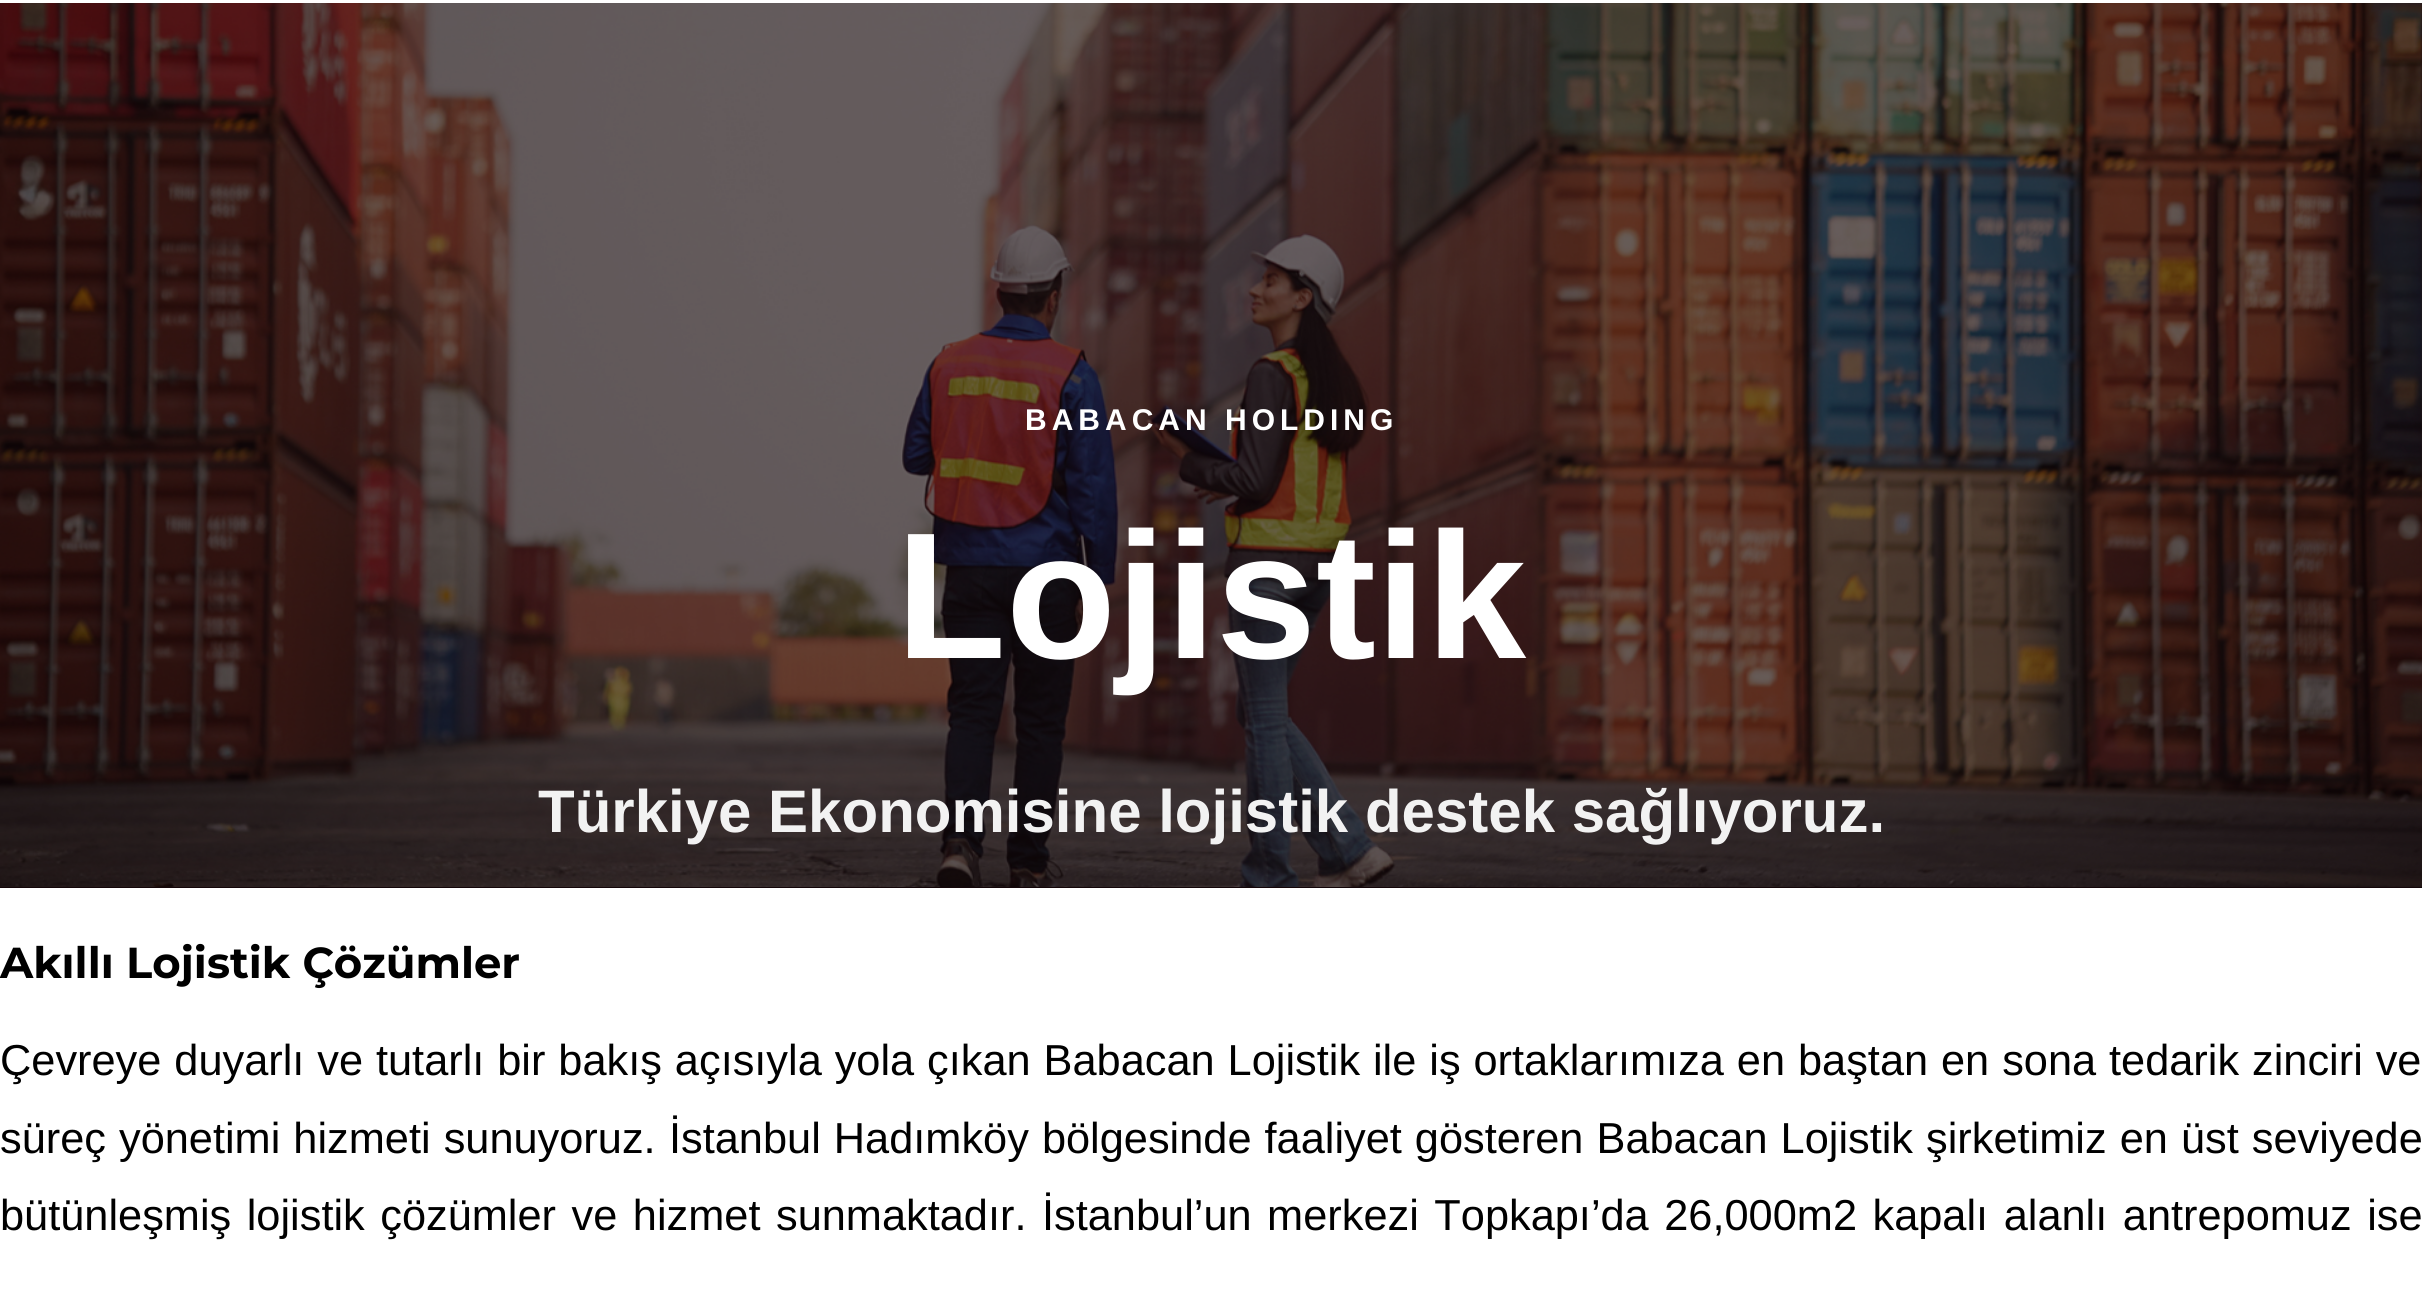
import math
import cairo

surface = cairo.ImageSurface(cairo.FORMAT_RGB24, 2422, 1298)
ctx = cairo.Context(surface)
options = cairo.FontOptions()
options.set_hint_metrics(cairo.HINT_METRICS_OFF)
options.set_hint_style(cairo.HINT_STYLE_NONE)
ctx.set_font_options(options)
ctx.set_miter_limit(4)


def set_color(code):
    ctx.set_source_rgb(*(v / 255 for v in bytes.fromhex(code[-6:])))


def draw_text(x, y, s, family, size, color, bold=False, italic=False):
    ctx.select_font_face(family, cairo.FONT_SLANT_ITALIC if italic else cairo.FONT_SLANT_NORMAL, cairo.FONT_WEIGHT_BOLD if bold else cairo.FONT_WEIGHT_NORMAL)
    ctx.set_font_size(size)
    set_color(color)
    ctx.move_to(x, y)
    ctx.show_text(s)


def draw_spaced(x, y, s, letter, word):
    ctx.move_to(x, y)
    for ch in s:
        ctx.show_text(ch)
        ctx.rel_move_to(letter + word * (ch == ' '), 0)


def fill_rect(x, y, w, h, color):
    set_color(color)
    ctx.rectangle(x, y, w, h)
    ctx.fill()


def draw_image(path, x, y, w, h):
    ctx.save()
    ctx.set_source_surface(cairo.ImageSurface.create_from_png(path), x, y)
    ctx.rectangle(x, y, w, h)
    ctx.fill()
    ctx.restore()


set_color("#ffffff")
ctx.paint()
fill_rect(0, 887, 2422, 1, "#140609")
draw_image("assets/img1.png", 0, 3, 2422, 884)
ctx.select_font_face("Liberation Sans", cairo.FONT_SLANT_NORMAL, cairo.FONT_WEIGHT_BOLD)
ctx.set_font_size(30)
set_color("#ffffff")
draw_spaced(1025, 430, "BABACAN HOLDING", 5, 0)
draw_text(896, 658, "Lojistik", "Liberation Sans", 180, "#ffffff", bold=True)
draw_text(538, 832, "Türkiye Ekonomisine lojistik destek sağlıyoruz.", "Liberation Sans", 60, "#f2f2f2", bold=True)
draw_text(0, 978, "Akıllı Lojistik Çözümler", "Montserrat", 43.33, "#000000", bold=True)
ctx.select_font_face("Liberation Sans")
draw_spaced(0, 1075, "Çevreye duyarlı ve tutarlı bir bakış açısıyla yola çıkan Babacan Lojistik ile iş ortaklarımıza en baştan en sona tedarik zinciri ve", 0, 0.9)
draw_spaced(0, 1153, "süreç yönetimi hizmeti sunuyoruz.", 0, 1)
draw_spaced(669, 1153, "İstanbul Hadımköy bölgesinde faaliyet gösteren Babacan Lojistik şirketimiz en üst seviyede", 0, 1)
draw_spaced(0, 1230, "bütünleşmiş lojistik çözümler ve hizmet sunmaktadır. İstanbul’un merkezi Topkapı’da 26,000m2 kapalı alanlı antrepomuz ise", 0, 3.5)
surface.write_to_png("output.png")
